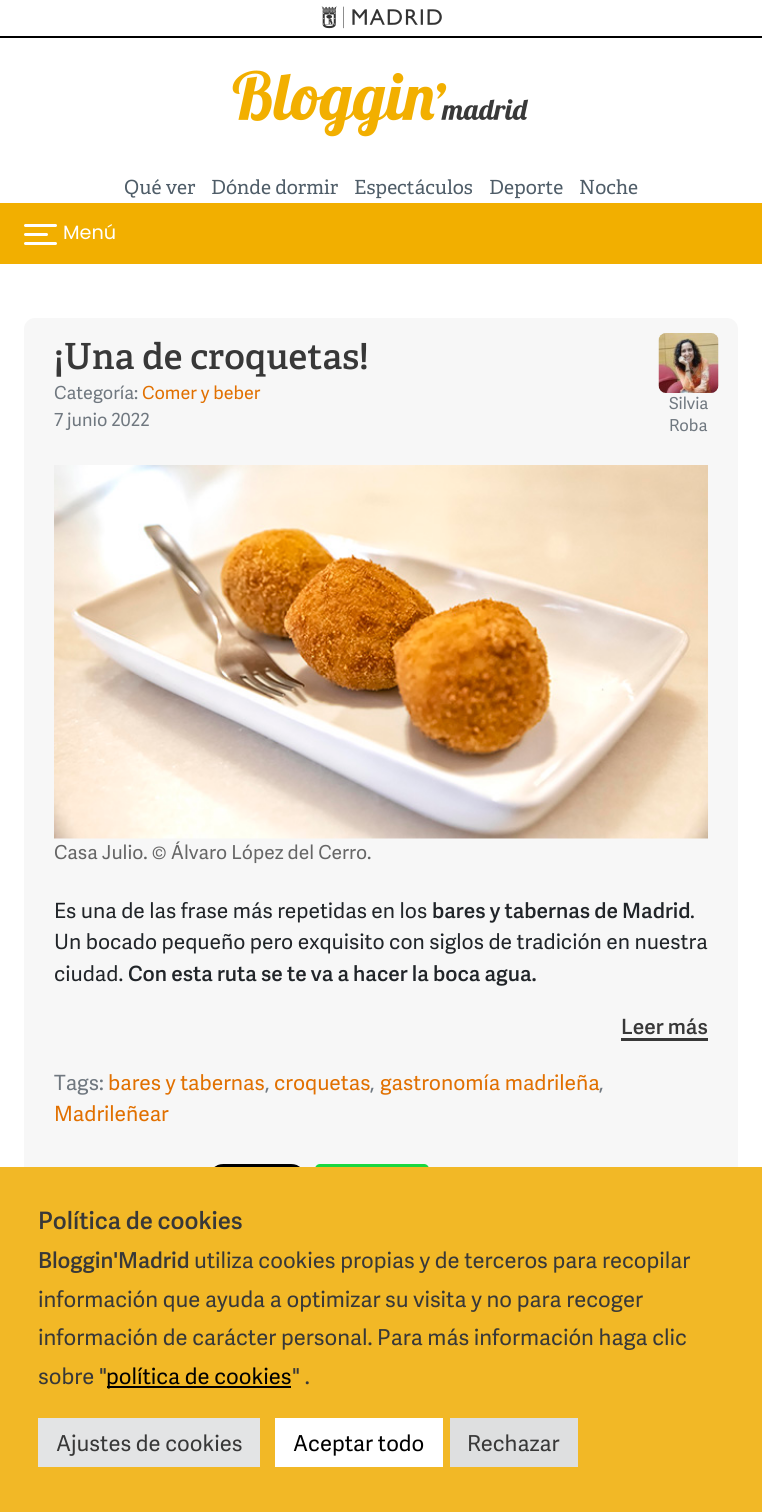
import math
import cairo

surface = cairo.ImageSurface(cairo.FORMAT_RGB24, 762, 1512)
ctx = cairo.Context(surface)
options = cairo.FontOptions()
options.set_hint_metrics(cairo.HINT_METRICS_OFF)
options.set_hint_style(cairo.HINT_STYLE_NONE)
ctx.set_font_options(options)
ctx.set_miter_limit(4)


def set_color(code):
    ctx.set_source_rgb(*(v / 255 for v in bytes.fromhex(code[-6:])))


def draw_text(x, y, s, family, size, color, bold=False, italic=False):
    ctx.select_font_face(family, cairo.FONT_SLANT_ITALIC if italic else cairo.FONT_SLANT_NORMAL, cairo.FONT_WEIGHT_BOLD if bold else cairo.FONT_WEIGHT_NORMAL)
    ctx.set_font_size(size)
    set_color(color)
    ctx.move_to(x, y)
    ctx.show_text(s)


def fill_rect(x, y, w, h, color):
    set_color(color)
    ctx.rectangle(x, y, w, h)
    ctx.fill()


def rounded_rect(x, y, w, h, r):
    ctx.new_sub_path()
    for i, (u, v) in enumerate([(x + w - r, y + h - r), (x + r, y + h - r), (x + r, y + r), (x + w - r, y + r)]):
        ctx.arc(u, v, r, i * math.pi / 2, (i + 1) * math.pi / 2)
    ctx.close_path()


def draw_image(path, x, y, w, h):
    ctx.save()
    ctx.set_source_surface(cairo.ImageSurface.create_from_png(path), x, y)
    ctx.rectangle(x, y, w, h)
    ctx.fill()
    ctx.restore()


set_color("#ffffff")
ctx.paint()
fill_rect(0, 36, 762, 2, "#000000")
draw_image("assets/img1.png", 321, 6, 121, 23)
draw_image("assets/img2.png", 232, 70, 297, 67)
draw_text(124, 194, "Qué ver", "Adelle", 19.5, "#4f5d68")
draw_text(211, 194, "Dónde dormir", "Adelle", 19.5, "#4f5d68")
draw_text(354, 194, "Espectáculos", "Adelle", 19.5, "#4f5d68")
draw_text(489, 194, "Deporte", "Adelle", 19.5, "#4f5d68")
draw_text(579, 194, "Noche", "Adelle", 19.5, "#4f5d68")
fill_rect(0, 203, 762, 61, "#f2af00")
set_color("#ffffff")
rounded_rect(24, 224, 33, 3, 1.5)
ctx.fill()
rounded_rect(24, 233, 24, 3, 1.5)
ctx.fill()
rounded_rect(24, 242, 33, 3, 1.5)
ctx.fill()
draw_text(63, 239, "Menú", "Poppins", 19.25, "#ffffff")
set_color("#f7f7f7")
rounded_rect(24, 318, 714, 893, 11)
ctx.fill()
draw_text(54, 369, "¡Una de croquetas!", "Adelle SemiBold", 36, "#383838")
draw_text(54, 399, "Categoría:", "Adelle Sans", 18, "#707880")
draw_text(142, 399, "Comer y beber", "Adelle Sans", 18, "#e17000")
draw_text(54, 426, "7 junio 2022", "Adelle Sans", 18, "#707880")
draw_image("assets/img3.png", 658, 333, 61, 60)
draw_text(669, 409, "Silvia", "Adelle Sans", 16.5, "#707880")
draw_text(669, 431, "Roba", "Adelle Sans", 16.5, "#707880")
draw_image("assets/img4.png", 54, 465, 654, 374)
draw_text(54, 859, "Casa Julio. © Álvaro López del Cerro.", "Adelle Sans", 19.25, "#666666")
draw_text(54, 918, "Es una de las frase más repetidas en los", "Adelle Sans", 21, "#212529")
draw_text(432, 918, "bares y tabernas de Madrid", "Adelle Sans SemiBold", 21, "#212529")
draw_text(690, 918, ".", "Adelle Sans", 21, "#212529")
draw_text(54, 949, "Un bocado pequeño pero exquisito con siglos de tradición en nuestra", "Adelle Sans", 21, "#212529")
draw_text(54, 981, "ciudad.", "Adelle Sans", 21, "#212529")
draw_text(128, 981, "Con esta ruta se te va a hacer la boca agua.", "Adelle Sans SemiBold", 21, "#212529")
fill_rect(621, 1038, 87, 3, "#383838")
draw_text(621, 1034, "Leer más", "Adelle Sans SemiBold", 21, "#383838")
draw_text(54, 1090, "Tags:", "Adelle Sans", 21, "#707880")
draw_text(108, 1090, "bares y tabernas", "Adelle Sans", 21, "#e17000")
draw_text(265, 1090, ",", "Adelle Sans", 21, "#707880")
draw_text(274, 1090, "croquetas", "Adelle Sans", 21, "#e17000")
draw_text(370, 1090, ",", "Adelle Sans", 21, "#707880")
draw_text(380, 1090, "gastronomía madrileña", "Adelle Sans", 21, "#e17000")
draw_text(599, 1090, ",", "Adelle Sans", 21, "#707880")
draw_text(54, 1121, "Madrileñear", "Adelle Sans", 21, "#e17000")
draw_image("assets/img5.png", 214, 1164, 86, 3)
set_color("#1ad741")
rounded_rect(315, 1164, 114, 30, 5)
ctx.fill()
fill_rect(0, 1167, 762, 345, "#f2b826")
draw_text(38, 1229, "Política de cookies", "Adelle Sans SemiBold", 24, "#383838")
draw_text(38, 1268, "Bloggin'Madrid", "Adelle Sans SemiBold", 22, "#383838")
draw_text(194, 1268, "utiliza cookies propias y de terceros para recopilar", "Adelle Sans", 22, "#383838")
draw_text(38, 1307, "información que ayuda a optimizar su visita y no para recoger", "Adelle Sans", 22, "#383838")
draw_text(38, 1345, "información de carácter personal. Para más información haga clic", "Adelle Sans", 22, "#383838")
draw_text(38, 1384, "sobre \"", "Adelle Sans", 22, "#383838")
fill_rect(107, 1386, 184, 2, "#000000")
draw_text(106, 1384, "política de cookies", "Adelle Sans", 22, "#000000")
draw_text(292, 1384, "\" .", "Adelle Sans", 22, "#383838")
fill_rect(38, 1418, 222, 49, "#e3e4e5")
draw_text(56, 1451, "Ajustes de cookies", "Adelle Sans", 22, "#383838")
fill_rect(275, 1418, 168, 49, "#ffffff")
draw_text(293, 1451, "Aceptar todo", "Adelle Sans", 22, "#000000")
fill_rect(450, 1418, 128, 49, "#dedfe0")
draw_text(467, 1451, "Rechazar", "Adelle Sans", 22, "#383838")
surface.write_to_png("output.png")
